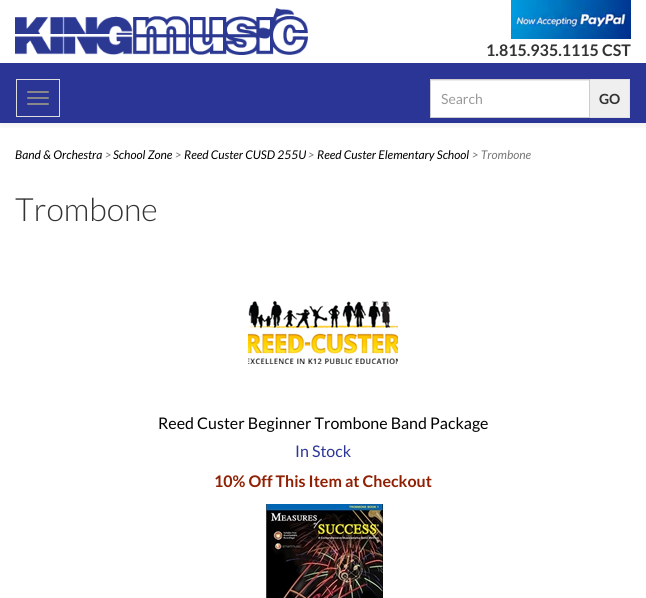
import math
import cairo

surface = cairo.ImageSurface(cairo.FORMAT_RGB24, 646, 598)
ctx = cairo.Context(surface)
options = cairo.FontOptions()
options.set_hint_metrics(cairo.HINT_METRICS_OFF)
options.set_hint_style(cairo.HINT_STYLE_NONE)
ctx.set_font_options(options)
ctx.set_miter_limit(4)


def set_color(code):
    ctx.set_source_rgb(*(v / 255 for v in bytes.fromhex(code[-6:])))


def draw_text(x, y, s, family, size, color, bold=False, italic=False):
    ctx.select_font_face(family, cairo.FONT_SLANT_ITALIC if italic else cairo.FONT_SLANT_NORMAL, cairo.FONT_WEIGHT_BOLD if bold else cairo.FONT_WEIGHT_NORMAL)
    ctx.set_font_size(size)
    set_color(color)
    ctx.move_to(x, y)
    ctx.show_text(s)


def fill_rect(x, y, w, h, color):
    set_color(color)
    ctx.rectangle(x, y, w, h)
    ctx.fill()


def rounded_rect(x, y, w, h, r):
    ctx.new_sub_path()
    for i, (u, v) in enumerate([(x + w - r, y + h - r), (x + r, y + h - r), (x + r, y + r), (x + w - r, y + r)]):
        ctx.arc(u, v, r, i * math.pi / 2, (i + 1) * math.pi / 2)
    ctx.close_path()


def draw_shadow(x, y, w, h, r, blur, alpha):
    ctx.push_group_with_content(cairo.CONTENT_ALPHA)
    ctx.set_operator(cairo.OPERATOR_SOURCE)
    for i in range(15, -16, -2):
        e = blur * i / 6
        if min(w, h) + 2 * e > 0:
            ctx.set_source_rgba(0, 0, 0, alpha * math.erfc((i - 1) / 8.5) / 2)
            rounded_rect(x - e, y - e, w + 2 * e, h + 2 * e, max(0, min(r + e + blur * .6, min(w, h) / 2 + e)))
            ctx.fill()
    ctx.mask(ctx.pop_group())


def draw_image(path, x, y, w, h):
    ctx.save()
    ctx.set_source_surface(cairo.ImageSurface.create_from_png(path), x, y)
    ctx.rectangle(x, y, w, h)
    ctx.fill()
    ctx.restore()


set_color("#ffffff")
ctx.paint()
ctx.save()
ctx.rectangle(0, 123, 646, 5)
ctx.clip()
set_color("#000000")
draw_shadow(0, 0, 646, 123, 0, 6, 0.1)
ctx.restore()
draw_image("assets/img1.png", 15, 8, 293, 47)
draw_image("assets/img2.png", 511, 0, 120, 39)
draw_text(486, 56, "1.815.935.1115 CST", "Lato", 16, "#333333", bold=True)
fill_rect(0, 63, 646, 60, "#2b3596")
ctx.rectangle(16.5, 79.5, 43, 37)
set_color("#dddddd")
ctx.set_line_width(1)
ctx.stroke()
set_color("#888888")
rounded_rect(27, 91, 22, 2, 1)
ctx.fill()
rounded_rect(27, 97, 22, 2, 1)
ctx.fill()
rounded_rect(27, 103, 22, 2, 1)
ctx.fill()
fill_rect(431, 81, 158, 36, "#ffffff")
fill_rect(431, 80, 158, 1, "#ececec")
ctx.rectangle(430.5, 79.5, 159, 38)
set_color("#cccccc")
ctx.stroke()
draw_text(441, 104, "Search", "Lato", 14, "#999999")
fill_rect(590, 80, 39, 37, "#efefef")
fill_rect(590, 79, 40, 1, "#e2e2e2")
fill_rect(629, 79, 1, 39, "#e2e2e2")
fill_rect(590, 117, 40, 1, "#e2e2e2")
draw_text(599, 104, "GO", "Lato", 14, "#333333", bold=True)
draw_text(15, 159, "Band & Orchestra", "Lato", 12, "#000000", italic=True)
draw_text(105, 159, ">", "Lato", 12, "#777777", italic=True)
draw_text(113, 159, "School Zone", "Lato", 12, "#000000", italic=True)
draw_text(175, 159, ">", "Lato", 12, "#777777", italic=True)
draw_text(184, 159, "Reed Custer CUSD 255U", "Lato", 12, "#000000", italic=True)
draw_text(308, 159, ">", "Lato", 12, "#777777", italic=True)
draw_text(317, 159, "Reed Custer Elementary School", "Lato", 12, "#000000", italic=True)
draw_text(472, 159, "> Trombone", "Lato", 12, "#777777", italic=True)
draw_text(15, 221, "Trombone", "Lato Light", 32, "#333333")
draw_image("assets/img3.png", 248, 300, 150, 64)
draw_text(158, 429, "Reed Custer Beginner Trombone Band Package", "Lato", 16, "#000000")
draw_text(295, 457, "In Stock", "Lato", 16, "#2b3596")
draw_text(214, 487, "10% Off This Item at Checkout", "Lato", 16, "#902003", bold=True)
draw_image("assets/img4.png", 265, 504, 120, 94)
surface.write_to_png("output.png")
